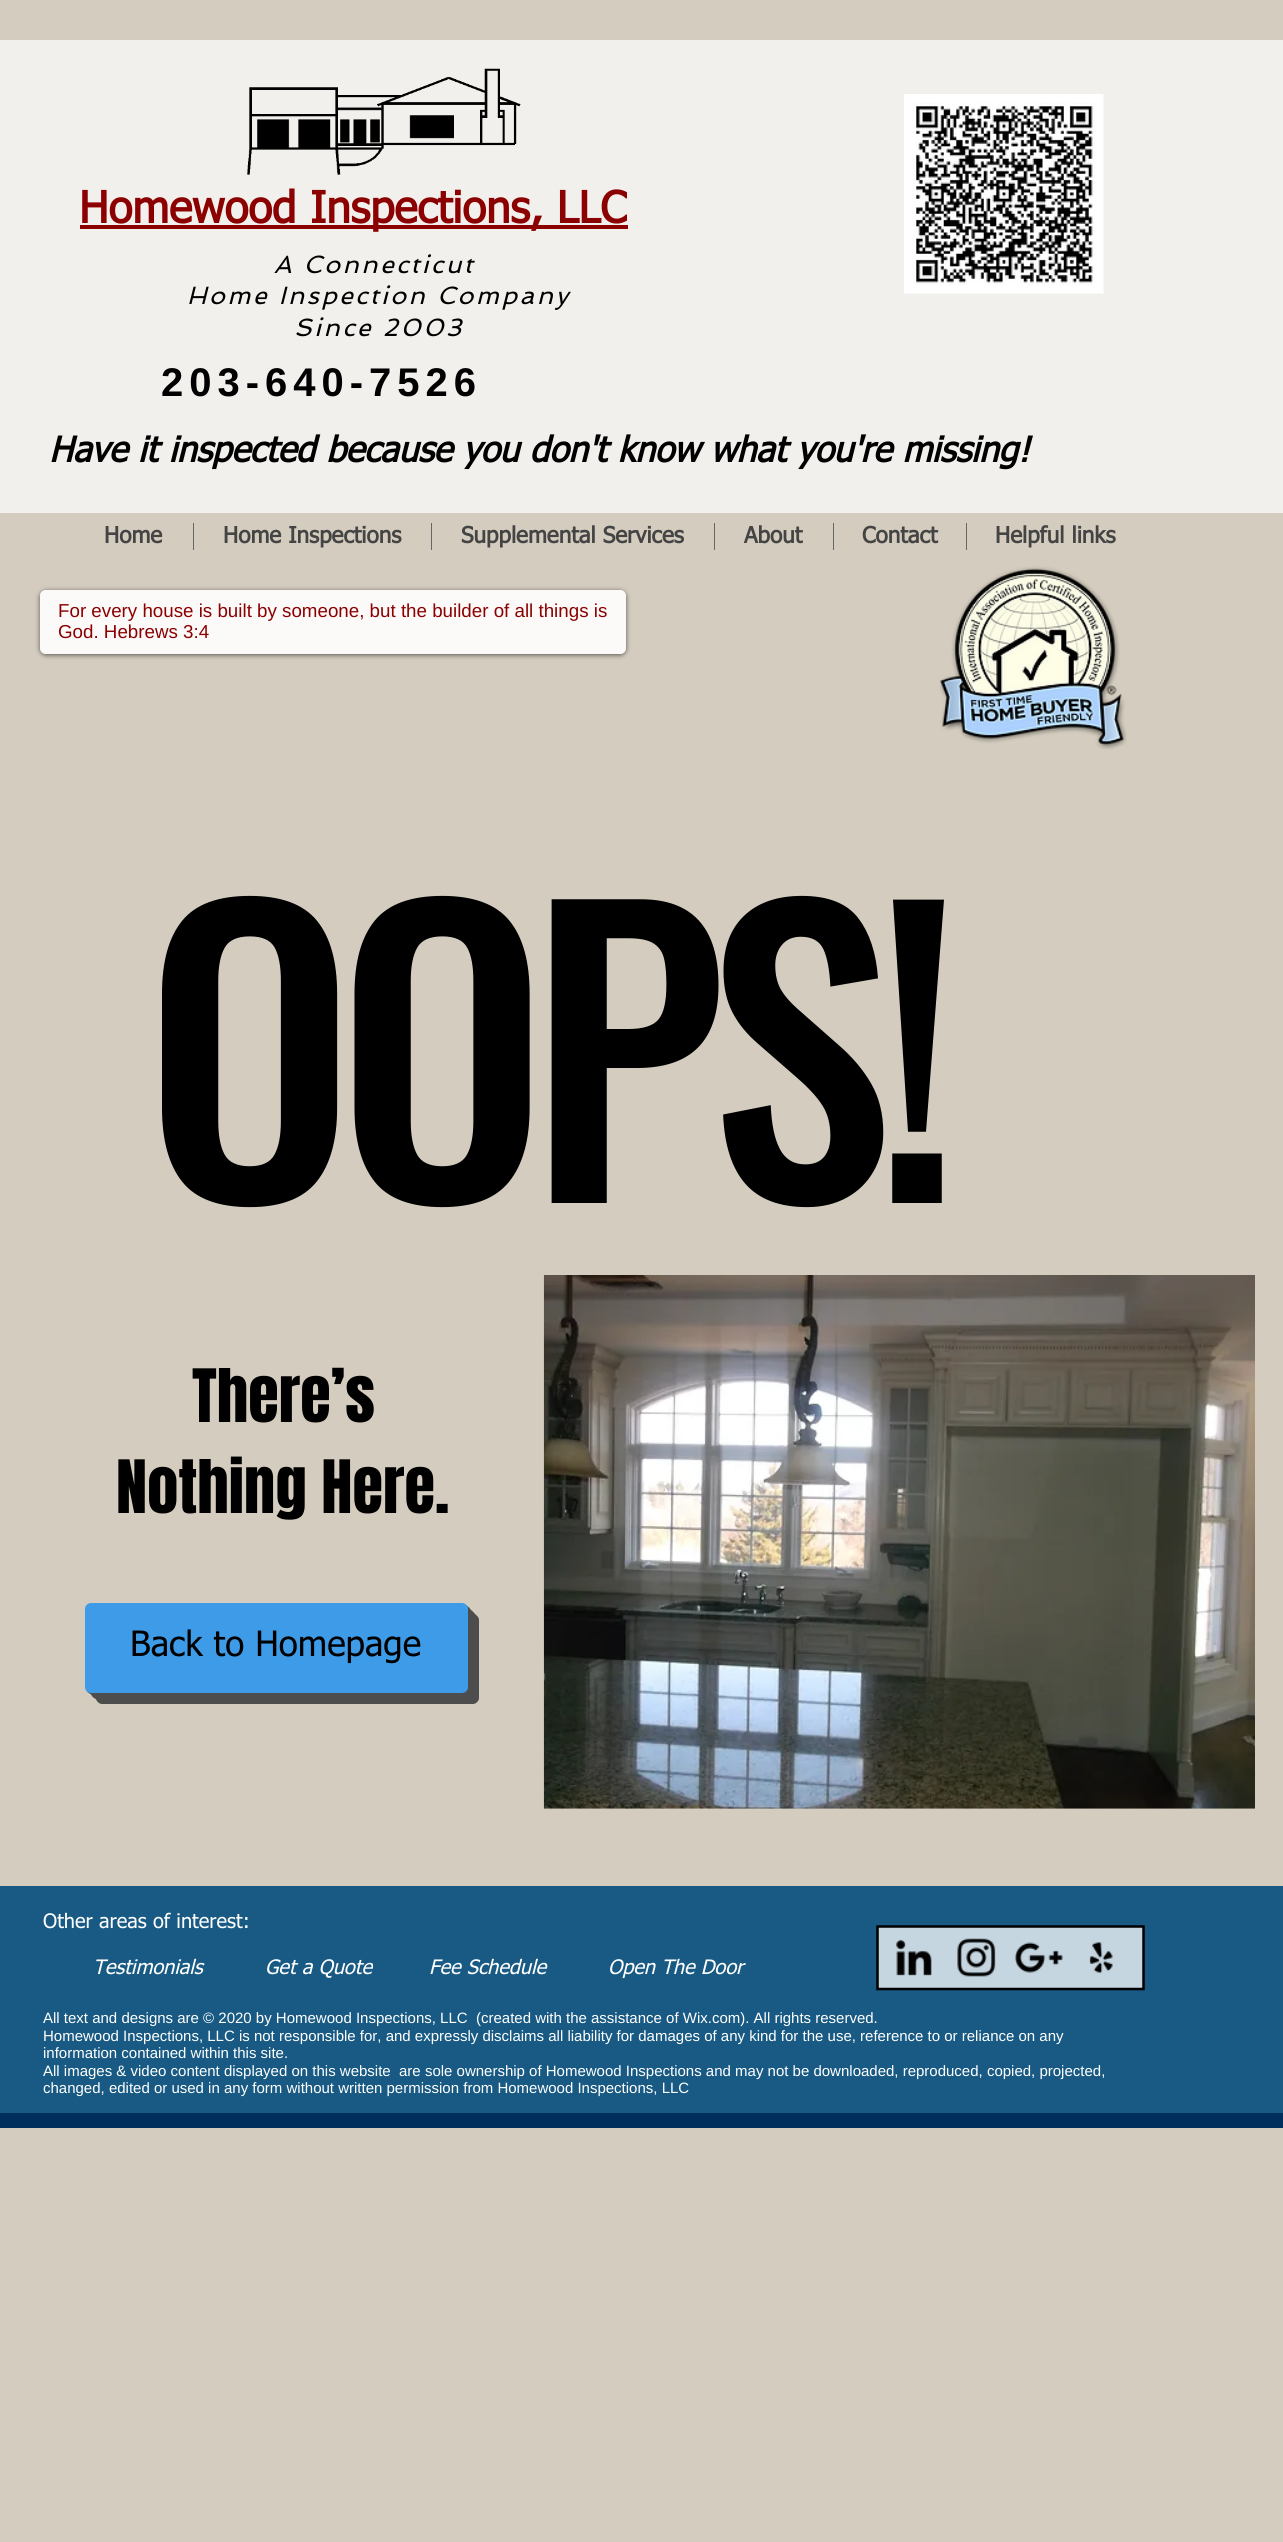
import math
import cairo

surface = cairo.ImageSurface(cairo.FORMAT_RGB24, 1283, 2542)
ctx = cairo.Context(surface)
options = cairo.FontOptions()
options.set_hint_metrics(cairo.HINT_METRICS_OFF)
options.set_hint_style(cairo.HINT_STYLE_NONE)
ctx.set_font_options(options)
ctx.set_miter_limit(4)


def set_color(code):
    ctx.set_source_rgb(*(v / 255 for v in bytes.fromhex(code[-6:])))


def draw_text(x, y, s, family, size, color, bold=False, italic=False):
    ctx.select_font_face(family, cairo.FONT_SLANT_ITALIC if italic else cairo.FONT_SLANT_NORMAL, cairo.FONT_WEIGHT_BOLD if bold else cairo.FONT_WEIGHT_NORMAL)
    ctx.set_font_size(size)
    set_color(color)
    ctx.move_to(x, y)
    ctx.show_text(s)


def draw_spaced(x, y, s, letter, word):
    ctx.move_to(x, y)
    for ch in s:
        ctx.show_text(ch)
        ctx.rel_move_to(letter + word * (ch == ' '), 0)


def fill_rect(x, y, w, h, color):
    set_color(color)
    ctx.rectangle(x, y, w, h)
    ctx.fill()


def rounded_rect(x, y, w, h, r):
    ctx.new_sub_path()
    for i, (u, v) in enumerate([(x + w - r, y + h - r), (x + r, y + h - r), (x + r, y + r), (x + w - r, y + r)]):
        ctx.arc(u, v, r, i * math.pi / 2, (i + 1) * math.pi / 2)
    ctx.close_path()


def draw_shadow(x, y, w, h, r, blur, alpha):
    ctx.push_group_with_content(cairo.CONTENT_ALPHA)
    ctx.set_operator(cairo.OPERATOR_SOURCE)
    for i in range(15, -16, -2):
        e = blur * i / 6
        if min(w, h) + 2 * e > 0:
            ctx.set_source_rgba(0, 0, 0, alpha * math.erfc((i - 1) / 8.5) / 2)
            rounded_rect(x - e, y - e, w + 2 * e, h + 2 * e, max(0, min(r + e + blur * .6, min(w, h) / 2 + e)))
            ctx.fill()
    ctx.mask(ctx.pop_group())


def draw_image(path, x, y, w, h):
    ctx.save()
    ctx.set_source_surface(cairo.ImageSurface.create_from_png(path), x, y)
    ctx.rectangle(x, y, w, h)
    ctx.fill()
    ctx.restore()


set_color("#d4cdbf")
ctx.paint()
fill_rect(0, 40, 1283, 473, "#f2f0ec")
draw_image("assets/img1.png", 247, 68, 274, 107)
draw_image("assets/img2.png", 904, 94, 200, 200)
fill_rect(80, 225, 548, 4, "#8b0000")
draw_text(79, 223, "Homewood Inspections, LLC", "tahoma", 43.75, "#8b0000", bold=True)
ctx.select_font_face("Spinnaker", cairo.FONT_SLANT_ITALIC)
ctx.set_font_size(25)
set_color("#000000")
draw_spaced(274, 273, "A Connecticut", 2.5, 0)
draw_spaced(187, 304, "Home Inspection Company", 2.5, 0)
draw_spaced(294, 336, "Since 2003", 2.5, 0)
ctx.select_font_face("Liberation Sans", cairo.FONT_SLANT_NORMAL, cairo.FONT_WEIGHT_BOLD)
ctx.set_font_size(40)
draw_spaced(161, 396, "203-640-7526", 6, 0)
draw_text(49, 462, "Have it inspected because you don't know what you're missing!", "tahoma", 35, "#000000", bold=True, italic=True)
draw_text(104, 543, "Home", "tahoma", 22.5, "#444444", bold=True)
fill_rect(193, 523, 1, 27, "#666666")
draw_text(223, 543, "Home Inspections", "tahoma", 22.5, "#444444", bold=True)
fill_rect(431, 523, 1, 27, "#666666")
draw_text(461, 543, "Supplemental Services", "tahoma", 22.5, "#444444", bold=True)
fill_rect(714, 523, 1, 27, "#666666")
draw_text(744, 543, "About", "tahoma", 22.5, "#444444", bold=True)
fill_rect(833, 523, 1, 27, "#666666")
draw_text(862, 543, "Contact", "tahoma", 22.5, "#444444", bold=True)
fill_rect(966, 523, 1, 27, "#666666")
draw_text(995, 543, "Helpful links", "tahoma", 22.5, "#444444", bold=True)
ctx.save()
ctx.set_fill_rule(cairo.FILL_RULE_EVEN_ODD)
ctx.new_path()
ctx.move_to(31, 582)
ctx.line_to(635, 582)
ctx.line_to(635, 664)
ctx.line_to(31, 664)
ctx.close_path()
ctx.move_to(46, 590)
ctx.line_to(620, 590)
ctx.curve_to(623.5, 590, 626, 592.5, 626, 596)
ctx.line_to(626, 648)
ctx.curve_to(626, 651.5, 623.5, 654, 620, 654)
ctx.line_to(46, 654)
ctx.curve_to(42.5, 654, 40, 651.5, 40, 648)
ctx.line_to(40, 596)
ctx.curve_to(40, 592.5, 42.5, 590, 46, 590)
ctx.close_path()
ctx.clip()
set_color("#000000")
draw_shadow(40, 591, 586, 64, 6, 2.5, 0.6)
ctx.restore()
ctx.set_source_rgba(1, 1, 1, 0.9)
rounded_rect(40, 590, 586, 64, 6)
ctx.fill()
draw_text(58, 617, "For every house is built by someone, but the builder of all things is", "Liberation Sans", 18.75, "#8b0000")
draw_text(58, 638, "God. Hebrews 3:4", "Liberation Sans", 18.75, "#8b0000")
draw_image("assets/img3.png", 939, 566, 188, 184)
ctx.select_font_face("Oswald Medium")
ctx.set_font_size(375)
set_color("#000000")
draw_spaced(144, 1203, "OOPS!", -18.75, 0)
draw_text(192, 1422, "There’s", "Anton", 62.5, "#000000")
draw_text(116, 1513, "Nothing Here.", "Anton", 62.5, "#000000")
draw_image("assets/img4.png", 543, 1275, 712, 534)
set_color("#4d4d4d")
ctx.new_path()
ctx.move_to(96, 1692)
ctx.line_to(96, 1698)
ctx.curve_to(96, 1701, 99, 1704, 102, 1704)
ctx.line_to(473, 1704)
ctx.curve_to(476, 1704, 479, 1701, 479, 1698)
ctx.line_to(479, 1620)
ctx.curve_to(479, 1617, 476, 1614, 473, 1614)
ctx.line_to(468, 1614)
ctx.line_to(468, 1686)
ctx.curve_to(468, 1690, 465, 1692, 461, 1692)
ctx.close_path()
ctx.fill()
ctx.new_path()
ctx.move_to(94, 1692)
ctx.line_to(94, 1695)
ctx.curve_to(94, 1698, 97, 1701, 100, 1701)
ctx.line_to(470, 1701)
ctx.curve_to(473, 1701, 476, 1698, 476, 1695)
ctx.line_to(476, 1617)
ctx.curve_to(476, 1614, 473, 1611, 470, 1611)
ctx.line_to(468, 1611)
ctx.line_to(468, 1686)
ctx.curve_to(468, 1690, 465, 1692, 461, 1692)
ctx.close_path()
ctx.fill()
ctx.new_path()
ctx.move_to(91, 1692)
ctx.line_to(91, 1693)
ctx.curve_to(91, 1696, 94, 1699, 97, 1699)
ctx.line_to(468, 1699)
ctx.curve_to(471, 1699, 474, 1696, 474, 1693)
ctx.line_to(474, 1615)
ctx.curve_to(474, 1612, 471, 1609, 468, 1609)
ctx.line_to(468, 1673)
ctx.curve_to(468, 1678, 470, 1692, 461, 1692)
ctx.close_path()
ctx.fill()
ctx.new_path()
ctx.move_to(89, 1692)
ctx.curve_to(90, 1694, 92, 1696, 95, 1696)
ctx.line_to(465, 1696)
ctx.curve_to(468, 1696, 471, 1693, 471, 1690)
ctx.line_to(471, 1612)
ctx.curve_to(471, 1609, 469, 1607, 467, 1606)
ctx.line_to(468, 1609)
ctx.line_to(468, 1686)
ctx.curve_to(468, 1690, 465, 1692, 461, 1692)
ctx.close_path()
ctx.fill()
ctx.new_path()
ctx.move_to(86, 1690)
ctx.curve_to(87, 1692, 89, 1694, 92, 1694)
ctx.line_to(463, 1694)
ctx.curve_to(466, 1694, 469, 1691, 469, 1688)
ctx.line_to(469, 1610)
ctx.curve_to(469, 1608, 468, 1606, 466, 1605)
ctx.curve_to(467, 1606, 468, 1607, 468, 1609)
ctx.line_to(468, 1686)
ctx.curve_to(468, 1690, 465, 1692, 461, 1692)
ctx.line_to(91, 1692)
ctx.curve_to(89, 1692, 88, 1692, 86, 1690)
ctx.close_path()
ctx.fill()
set_color("#3d9be8")
rounded_rect(85, 1603, 383, 90, 6)
ctx.fill()
draw_text(130, 1656, "Back to Homepage", "tahoma", 35, "#000000")
fill_rect(0, 1886, 1283, 227, "#185a83")
fill_rect(0, 2113, 1283, 15, "#002e5d")
draw_text(43, 1928, "Other areas of interest:", "tahoma", 20, "#ffffff")
draw_text(93, 1974, "Testimonials", "tahoma", 20, "#ffffff", italic=True)
draw_text(265, 1974, "Get a Quote", "tahoma", 20, "#ffffff", italic=True)
draw_text(429, 1974, "Fee Schedule", "tahoma", 20, "#ffffff", italic=True)
draw_text(608, 1974, "Open The Door", "tahoma", 20, "#ffffff", italic=True)
fill_rect(878, 1927, 265, 61, "#c5d6e0")
ctx.new_path()
ctx.move_to(1143.5, 1926.5)
ctx.line_to(1143.5, 1989)
ctx.line_to(877.5, 1989)
ctx.line_to(877.5, 1926.5)
ctx.close_path()
set_color("#000000")
ctx.set_line_width(2.5)
ctx.stroke()
draw_image("assets/img5.png", 896, 1939, 36, 37)
draw_image("assets/img6.png", 957, 1938, 39, 39)
draw_image("assets/img7.png", 1014, 1942, 49, 31)
draw_image("assets/img8.png", 1089, 1942, 24, 31)
draw_text(43, 2023, "All text and designs are © 2020 by Homewood Inspections, LLC  (created with the assistance of Wix.com). All rights reserved.", "Liberation Sans", 15, "#ffffff")
draw_text(43, 2041, "Homewood Inspections, LLC is not responsible for, and expressly disclaims all liability for damages of any kind for the use, reference to or reliance on any", "Liberation Sans", 15, "#ffffff")
draw_text(43, 2058, "information contained within this site.", "Liberation Sans", 15, "#ffffff")
draw_text(43, 2076, "All images & video content displayed on this website  are sole ownership of Homewood Inspections and may not be downloaded, reproduced, copied, projected,", "Liberation Sans", 15, "#ffffff")
draw_text(43, 2093, "changed, edited or used in any form without written permission from Homewood Inspections, LLC", "Liberation Sans", 15, "#ffffff")
surface.write_to_png("output.png")
